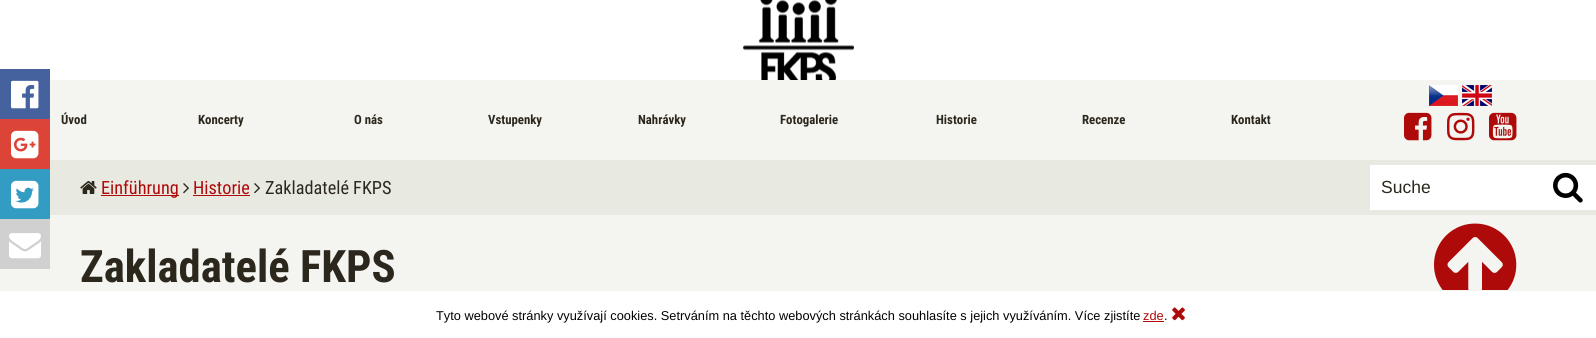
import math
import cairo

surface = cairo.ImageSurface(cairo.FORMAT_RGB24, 1596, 338)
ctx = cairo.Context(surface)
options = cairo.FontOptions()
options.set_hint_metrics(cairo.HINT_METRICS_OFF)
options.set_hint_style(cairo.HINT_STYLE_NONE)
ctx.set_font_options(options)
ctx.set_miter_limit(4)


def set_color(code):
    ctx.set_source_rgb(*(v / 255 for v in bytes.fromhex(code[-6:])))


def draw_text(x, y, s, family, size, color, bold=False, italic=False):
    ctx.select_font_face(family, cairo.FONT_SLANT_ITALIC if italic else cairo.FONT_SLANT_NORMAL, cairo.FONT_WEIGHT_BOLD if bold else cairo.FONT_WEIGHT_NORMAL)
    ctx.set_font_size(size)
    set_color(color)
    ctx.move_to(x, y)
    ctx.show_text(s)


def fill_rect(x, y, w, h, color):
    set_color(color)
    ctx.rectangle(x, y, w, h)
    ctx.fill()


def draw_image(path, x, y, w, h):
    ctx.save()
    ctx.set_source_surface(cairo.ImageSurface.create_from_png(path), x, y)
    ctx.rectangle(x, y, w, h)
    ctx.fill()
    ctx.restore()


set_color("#f4f5f1")
ctx.paint()
fill_rect(0, 0, 1596, 80, "#ffffff")
fill_rect(0, 69, 50, 50, "#46629e")
draw_image("assets/img1.png", 11, 80, 28, 29)
fill_rect(0, 119, 50, 50, "#db4437")
draw_image("assets/img2.png", 11, 130, 28, 29)
fill_rect(0, 169, 50, 50, "#339cc3")
draw_image("assets/img3.png", 11, 180, 28, 29)
fill_rect(0, 219, 50, 50, "#d0d0d0")
draw_image("assets/img4.png", 9, 233, 32, 26)
draw_image("assets/img5.png", 743, 0, 111, 80)
draw_text(61, 124, "Úvod", "Roboto Condensed", 12.8, "#2c271d", bold=True)
draw_text(198, 124, "Koncerty", "Roboto Condensed", 12.8, "#2c271d", bold=True)
draw_text(354, 124, "O nás", "Roboto Condensed", 12.8, "#2c271d", bold=True)
draw_text(488, 124, "Vstupenky", "Roboto Condensed", 12.8, "#2c271d", bold=True)
draw_text(638, 124, "Nahrávky", "Roboto Condensed", 12.8, "#2c271d", bold=True)
draw_text(780, 124, "Fotogalerie", "Roboto Condensed", 12.8, "#2c271d", bold=True)
draw_text(936, 124, "Historie", "Roboto Condensed", 12.8, "#2c271d", bold=True)
draw_text(1082, 124, "Recenze", "Roboto Condensed", 12.8, "#2c271d", bold=True)
draw_text(1231, 124, "Kontakt", "Roboto Condensed", 12.8, "#2c271d", bold=True)
fill_rect(50, 160, 1546, 55, "#e8eae2")
fill_rect(1370, 165, 226, 45, "#ffffff")
draw_text(1381, 193, "Suche", "Liberation Sans", 17.5, "#2c271d")
draw_image("assets/img6.png", 1553, 172, 30, 31)
draw_image("assets/img7.png", 1429, 85, 29, 21)
draw_image("assets/img8.png", 1462, 85, 30, 21)
draw_image("assets/img9.png", 1404, 112, 28, 29)
draw_image("assets/img10.png", 1447, 112, 28, 29)
draw_image("assets/img11.png", 1489, 112, 28, 29)
draw_image("assets/img12.png", 80, 181, 17, 13)
fill_rect(101, 195, 78, 1, "#ae0a0a")
draw_text(101, 194, "Einführung", "Roboto Condensed", 18.25, "#ae0a0a")
draw_image("assets/img13.png", 183, 183, 6, 11)
draw_text(193, 194, "Historie", "Roboto Condensed", 18.25, "#ae0a0a")
fill_rect(193, 195, 57, 1, "#ae0a0a")
draw_image("assets/img13.png", 254, 183, 6, 11)
draw_text(265, 194, "Zakladatelé FKPS", "Roboto Condensed", 18.25, "#2c271d")
draw_text(80, 282, "Zakladatelé FKPS", "Roboto Condensed", 44.75, "#2c271d", bold=True)
draw_image("assets/img14.png", 1434, 223, 83, 67)
fill_rect(0, 291, 1596, 47, "#ffffff")
draw_text(436, 320, "Tyto webové stránky využívají cookies. Setrváním na těchto webových stránkách souhlasíte s jejich využíváním. Více zjistíte", "Liberation Sans", 12.8, "#000000")
draw_text(1143, 320, "zde", "Liberation Sans", 12.8, "#ae0a0a")
fill_rect(1143, 321, 21, 1, "#ae0a0a")
draw_text(1164, 320, ".", "Liberation Sans", 12.8, "#000000")
draw_image("assets/img15.png", 1172, 307, 13, 14)
surface.write_to_png("output.png")
